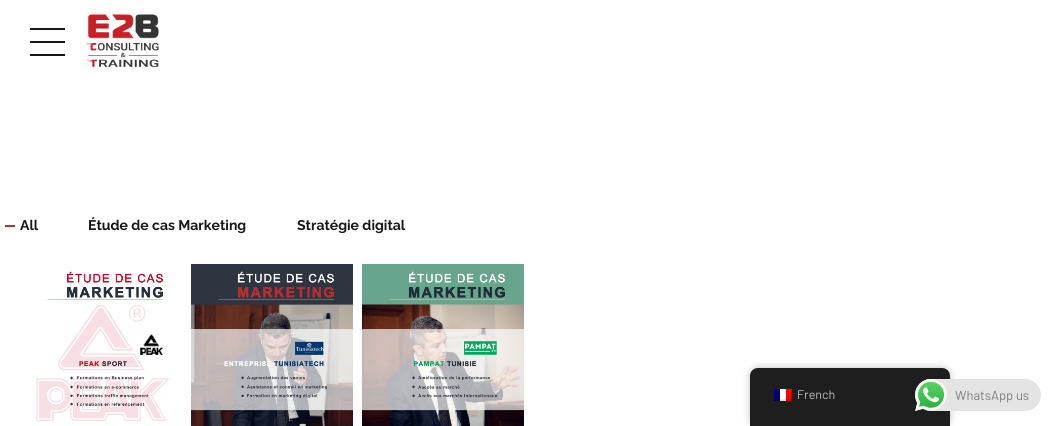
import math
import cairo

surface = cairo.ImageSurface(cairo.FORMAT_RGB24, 1056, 426)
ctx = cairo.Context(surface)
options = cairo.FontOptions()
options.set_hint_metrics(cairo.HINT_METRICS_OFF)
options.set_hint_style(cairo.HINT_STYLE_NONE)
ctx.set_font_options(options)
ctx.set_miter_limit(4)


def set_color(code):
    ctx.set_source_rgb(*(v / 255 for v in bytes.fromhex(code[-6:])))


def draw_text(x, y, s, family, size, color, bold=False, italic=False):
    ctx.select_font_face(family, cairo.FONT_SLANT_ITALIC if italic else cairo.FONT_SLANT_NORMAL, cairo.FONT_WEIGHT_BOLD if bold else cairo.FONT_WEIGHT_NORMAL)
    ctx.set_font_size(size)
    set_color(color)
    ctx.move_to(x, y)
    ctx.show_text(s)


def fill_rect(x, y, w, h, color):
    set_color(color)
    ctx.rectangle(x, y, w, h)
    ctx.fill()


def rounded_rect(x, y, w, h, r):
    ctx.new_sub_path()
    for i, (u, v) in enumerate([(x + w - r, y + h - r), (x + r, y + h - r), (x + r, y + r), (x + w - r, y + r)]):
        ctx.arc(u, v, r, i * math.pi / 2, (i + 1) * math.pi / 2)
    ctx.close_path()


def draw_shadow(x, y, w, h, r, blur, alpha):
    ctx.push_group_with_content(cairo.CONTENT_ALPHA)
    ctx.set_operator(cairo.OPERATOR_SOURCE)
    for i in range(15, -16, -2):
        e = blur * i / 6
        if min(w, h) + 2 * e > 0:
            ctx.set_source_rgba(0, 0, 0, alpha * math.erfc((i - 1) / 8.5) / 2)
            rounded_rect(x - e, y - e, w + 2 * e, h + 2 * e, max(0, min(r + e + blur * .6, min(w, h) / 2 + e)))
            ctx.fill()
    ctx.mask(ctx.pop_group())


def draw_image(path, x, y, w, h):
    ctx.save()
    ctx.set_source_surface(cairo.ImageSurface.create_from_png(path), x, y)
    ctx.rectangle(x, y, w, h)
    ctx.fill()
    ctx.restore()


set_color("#ffffff")
ctx.paint()
fill_rect(30, 28, 35, 2, "#181818")
fill_rect(30, 41, 35, 2, "#181818")
fill_rect(30, 54, 35, 2, "#181818")
draw_image("assets/img1.png", 86, 14, 73, 54)
fill_rect(5, 225, 10, 2, "#b73235")
draw_text(20, 230, "All", "Raleway", 14, "#181818", bold=True)
draw_text(88, 230, "Étude de cas Marketing", "Raleway", 14, "#181818", bold=True)
draw_text(297, 230, "Stratégie digital", "Raleway", 14, "#181818", bold=True)
draw_image("assets/img2.png", 20, 264, 162, 162)
draw_image("assets/img3.png", 191, 264, 162, 162)
draw_image("assets/img4.png", 362, 264, 162, 162)
set_color("#000000")
draw_shadow(750, 368, 200, 58, 8, 4, 0.25)
set_color("#1e1e1e")
ctx.new_path()
ctx.move_to(758, 368)
ctx.line_to(942, 368)
ctx.curve_to(946.5, 368, 950, 371.5, 950, 376)
ctx.line_to(950, 426)
ctx.line_to(750, 426)
ctx.line_to(750, 376)
ctx.curve_to(750, 371.5, 753.5, 368, 758, 368)
ctx.close_path()
ctx.fill()
draw_image("assets/img5.png", 774, 389, 18, 12)
draw_text(797, 399, "French", "Barlow", 12.5, "#bdbdbd")
set_color("#e4e4e4")
rounded_rect(915, 379, 126, 32, 16)
ctx.fill()
draw_image("assets/img6.png", 915, 379, 32, 32)
draw_text(955, 400, "WhatsApp us", "Barlow", 13, "#7f7d7d")
surface.write_to_png("output.png")
